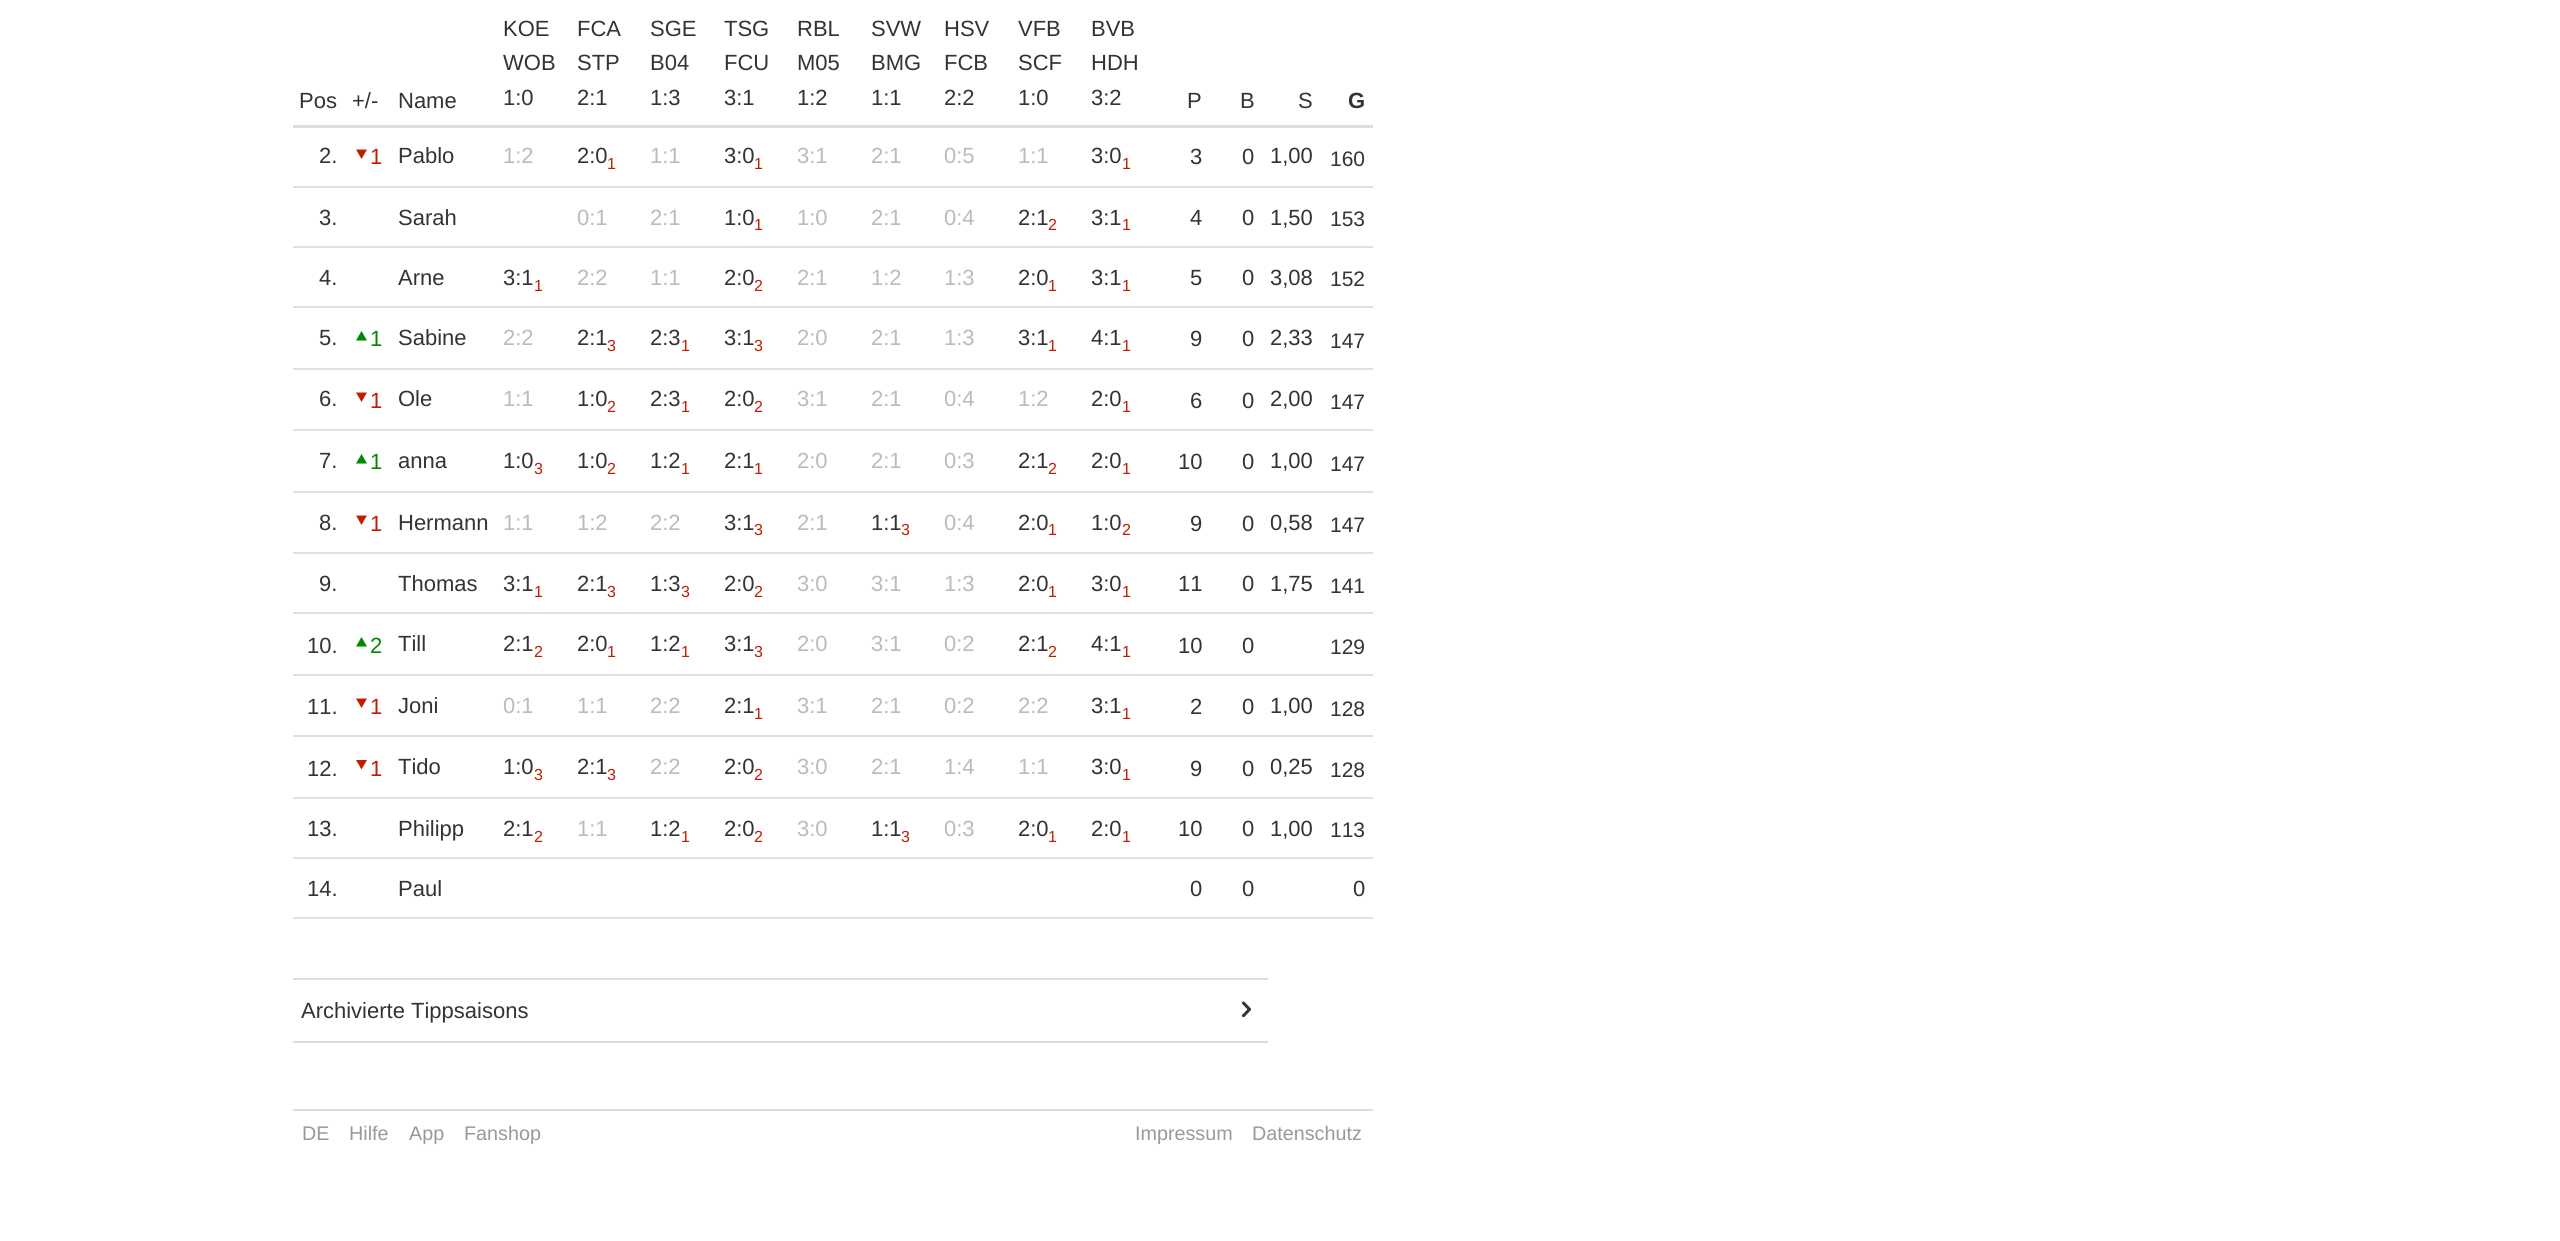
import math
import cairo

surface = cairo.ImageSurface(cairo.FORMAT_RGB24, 2560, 1241)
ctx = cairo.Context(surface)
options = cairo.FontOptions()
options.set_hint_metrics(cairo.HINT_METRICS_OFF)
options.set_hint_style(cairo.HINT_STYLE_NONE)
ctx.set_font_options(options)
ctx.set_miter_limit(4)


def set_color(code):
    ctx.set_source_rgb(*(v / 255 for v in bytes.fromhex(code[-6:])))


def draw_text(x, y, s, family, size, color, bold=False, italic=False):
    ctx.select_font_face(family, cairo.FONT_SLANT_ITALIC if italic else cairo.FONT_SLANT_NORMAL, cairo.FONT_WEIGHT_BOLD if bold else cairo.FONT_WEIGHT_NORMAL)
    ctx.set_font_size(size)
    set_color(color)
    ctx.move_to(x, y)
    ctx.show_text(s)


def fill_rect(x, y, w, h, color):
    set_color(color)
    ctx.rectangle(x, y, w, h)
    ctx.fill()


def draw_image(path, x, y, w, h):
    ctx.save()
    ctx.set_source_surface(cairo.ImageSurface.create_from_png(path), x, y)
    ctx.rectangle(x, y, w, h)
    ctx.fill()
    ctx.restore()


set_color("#ffffff")
ctx.paint()
fill_rect(293, 125, 1080, 3, "#dddddd")
draw_text(299, 108, "Pos", "Liberation Sans", 22, "#333333")
draw_text(352, 108, "+/-", "Liberation Sans", 22, "#333333")
draw_text(398, 108, "Name", "Liberation Sans", 22, "#333333")
draw_text(503, 36, "KOE", "Liberation Sans", 22, "#333333")
draw_text(503, 70, "WOB", "Liberation Sans", 22, "#333333")
draw_text(503, 105, "1:0", "Liberation Sans", 22, "#333333")
draw_text(577, 36, "FCA", "Liberation Sans", 22, "#333333")
draw_text(577, 70, "STP", "Liberation Sans", 22, "#333333")
draw_text(577, 105, "2:1", "Liberation Sans", 22, "#333333")
draw_text(650, 36, "SGE", "Liberation Sans", 22, "#333333")
draw_text(650, 70, "B04", "Liberation Sans", 22, "#333333")
draw_text(650, 105, "1:3", "Liberation Sans", 22, "#333333")
draw_text(724, 36, "TSG", "Liberation Sans", 22, "#333333")
draw_text(724, 70, "FCU", "Liberation Sans", 22, "#333333")
draw_text(724, 105, "3:1", "Liberation Sans", 22, "#333333")
draw_text(797, 36, "RBL", "Liberation Sans", 22, "#333333")
draw_text(797, 70, "M05", "Liberation Sans", 22, "#333333")
draw_text(797, 105, "1:2", "Liberation Sans", 22, "#333333")
draw_text(871, 36, "SVW", "Liberation Sans", 22, "#333333")
draw_text(871, 70, "BMG", "Liberation Sans", 22, "#333333")
draw_text(871, 105, "1:1", "Liberation Sans", 22, "#333333")
draw_text(944, 36, "HSV", "Liberation Sans", 22, "#333333")
draw_text(944, 70, "FCB", "Liberation Sans", 22, "#333333")
draw_text(944, 105, "2:2", "Liberation Sans", 22, "#333333")
draw_text(1018, 36, "VFB", "Liberation Sans", 22, "#333333")
draw_text(1018, 70, "SCF", "Liberation Sans", 22, "#333333")
draw_text(1018, 105, "1:0", "Liberation Sans", 22, "#333333")
draw_text(1091, 36, "BVB", "Liberation Sans", 22, "#333333")
draw_text(1091, 70, "HDH", "Liberation Sans", 22, "#333333")
draw_text(1091, 105, "3:2", "Liberation Sans", 22, "#333333")
draw_text(1187, 108, "P", "Liberation Sans", 22, "#333333")
draw_text(1240, 108, "B", "Liberation Sans", 22, "#333333")
draw_text(1298, 108, "S", "Liberation Sans", 22, "#333333")
draw_text(1348, 108, "G", "Liberation Sans", 22, "#333333", bold=True)
fill_rect(293, 186, 1080, 2, "#e0e0e0")
draw_text(319, 163, "2.", "Liberation Sans", 22, "#333333")
set_color("#c01c00")
ctx.new_path()
ctx.move_to(367, 149.5)
ctx.line_to(356, 149.5)
ctx.line_to(361.5, 159)
ctx.close_path()
ctx.fill()
draw_text(370, 164, "1", "Liberation Sans", 22, "#c01c00")
draw_text(398, 163, "Pablo", "Liberation Sans", 22, "#333333")
draw_text(503, 163, "1:2", "Liberation Sans", 22, "#bbbbbb")
draw_text(577, 163, "2:0", "Liberation Sans", 22, "#333333")
draw_text(607, 169, "1", "Liberation Sans", 16, "#c01c00")
draw_text(650, 163, "1:1", "Liberation Sans", 22, "#bbbbbb")
draw_text(724, 163, "3:0", "Liberation Sans", 22, "#333333")
draw_text(754, 169, "1", "Liberation Sans", 16, "#c01c00")
draw_text(797, 163, "3:1", "Liberation Sans", 22, "#bbbbbb")
draw_text(871, 163, "2:1", "Liberation Sans", 22, "#bbbbbb")
draw_text(944, 163, "0:5", "Liberation Sans", 22, "#bbbbbb")
draw_text(1018, 163, "1:1", "Liberation Sans", 22, "#bbbbbb")
draw_text(1091, 163, "3:0", "Liberation Sans", 22, "#333333")
draw_text(1122, 169, "1", "Liberation Sans", 16, "#c01c00")
draw_text(1190, 164, "3", "Liberation Sans", 22, "#333333")
draw_text(1242, 164, "0", "Liberation Sans", 22, "#333333")
draw_text(1270, 163, "1,00", "Liberation Sans", 22, "#333333")
draw_text(1330, 166, "160", "Liberation Sans", 21, "#333333")
fill_rect(293, 246, 1080, 2, "#e0e0e0")
draw_text(319, 225, "3.", "Liberation Sans", 22, "#333333")
draw_text(398, 225, "Sarah", "Liberation Sans", 22, "#333333")
draw_text(577, 225, "0:1", "Liberation Sans", 22, "#bbbbbb")
draw_text(650, 225, "2:1", "Liberation Sans", 22, "#bbbbbb")
draw_text(724, 225, "1:0", "Liberation Sans", 22, "#333333")
draw_text(754, 230, "1", "Liberation Sans", 16, "#c01c00")
draw_text(797, 225, "1:0", "Liberation Sans", 22, "#bbbbbb")
draw_text(871, 225, "2:1", "Liberation Sans", 22, "#bbbbbb")
draw_text(944, 225, "0:4", "Liberation Sans", 22, "#bbbbbb")
draw_text(1018, 225, "2:1", "Liberation Sans", 22, "#333333")
draw_text(1048, 230, "2", "Liberation Sans", 16, "#c01c00")
draw_text(1091, 225, "3:1", "Liberation Sans", 22, "#333333")
draw_text(1122, 230, "1", "Liberation Sans", 16, "#c01c00")
draw_text(1190, 225, "4", "Liberation Sans", 22, "#333333")
draw_text(1242, 225, "0", "Liberation Sans", 22, "#333333")
draw_text(1270, 225, "1,50", "Liberation Sans", 22, "#333333")
draw_text(1330, 226, "153", "Liberation Sans", 21, "#333333")
fill_rect(293, 306, 1080, 2, "#e0e0e0")
draw_text(319, 285, "4.", "Liberation Sans", 22, "#333333")
draw_text(398, 285, "Arne", "Liberation Sans", 22, "#333333")
draw_text(503, 285, "3:1", "Liberation Sans", 22, "#333333")
draw_text(534, 291, "1", "Liberation Sans", 16, "#c01c00")
draw_text(577, 285, "2:2", "Liberation Sans", 22, "#bbbbbb")
draw_text(650, 285, "1:1", "Liberation Sans", 22, "#bbbbbb")
draw_text(724, 285, "2:0", "Liberation Sans", 22, "#333333")
draw_text(754, 291, "2", "Liberation Sans", 16, "#c01c00")
draw_text(797, 285, "2:1", "Liberation Sans", 22, "#bbbbbb")
draw_text(871, 285, "1:2", "Liberation Sans", 22, "#bbbbbb")
draw_text(944, 285, "1:3", "Liberation Sans", 22, "#bbbbbb")
draw_text(1018, 285, "2:0", "Liberation Sans", 22, "#333333")
draw_text(1048, 291, "1", "Liberation Sans", 16, "#c01c00")
draw_text(1091, 285, "3:1", "Liberation Sans", 22, "#333333")
draw_text(1122, 291, "1", "Liberation Sans", 16, "#c01c00")
draw_text(1190, 285, "5", "Liberation Sans", 22, "#333333")
draw_text(1242, 285, "0", "Liberation Sans", 22, "#333333")
draw_text(1270, 285, "3,08", "Liberation Sans", 22, "#333333")
draw_text(1330, 286, "152", "Liberation Sans", 21, "#333333")
fill_rect(293, 368, 1080, 2, "#e0e0e0")
draw_text(319, 345, "5.", "Liberation Sans", 22, "#333333")
set_color("#008800")
ctx.new_path()
ctx.move_to(356, 340.5)
ctx.line_to(367, 340.5)
ctx.line_to(361.5, 331)
ctx.close_path()
ctx.fill()
draw_text(370, 346, "1", "Liberation Sans", 22, "#008800")
draw_text(398, 345, "Sabine", "Liberation Sans", 22, "#333333")
draw_text(503, 345, "2:2", "Liberation Sans", 22, "#bbbbbb")
draw_text(577, 345, "2:1", "Liberation Sans", 22, "#333333")
draw_text(607, 351, "3", "Liberation Sans", 16, "#c01c00")
draw_text(650, 345, "2:3", "Liberation Sans", 22, "#333333")
draw_text(681, 351, "1", "Liberation Sans", 16, "#c01c00")
draw_text(724, 345, "3:1", "Liberation Sans", 22, "#333333")
draw_text(754, 351, "3", "Liberation Sans", 16, "#c01c00")
draw_text(797, 345, "2:0", "Liberation Sans", 22, "#bbbbbb")
draw_text(871, 345, "2:1", "Liberation Sans", 22, "#bbbbbb")
draw_text(944, 345, "1:3", "Liberation Sans", 22, "#bbbbbb")
draw_text(1018, 345, "3:1", "Liberation Sans", 22, "#333333")
draw_text(1048, 351, "1", "Liberation Sans", 16, "#c01c00")
draw_text(1091, 345, "4:1", "Liberation Sans", 22, "#333333")
draw_text(1122, 351, "1", "Liberation Sans", 16, "#c01c00")
draw_text(1190, 346, "9", "Liberation Sans", 22, "#333333")
draw_text(1242, 346, "0", "Liberation Sans", 22, "#333333")
draw_text(1270, 345, "2,33", "Liberation Sans", 22, "#333333")
draw_text(1330, 348, "147", "Liberation Sans", 21, "#333333")
fill_rect(293, 429, 1080, 2, "#e0e0e0")
draw_text(319, 406, "6.", "Liberation Sans", 22, "#333333")
set_color("#c01c00")
ctx.new_path()
ctx.move_to(367, 392.5)
ctx.line_to(356, 392.5)
ctx.line_to(361.5, 402)
ctx.close_path()
ctx.fill()
draw_text(370, 408, "1", "Liberation Sans", 22, "#c01c00")
draw_text(398, 406, "Ole", "Liberation Sans", 22, "#333333")
draw_text(503, 406, "1:1", "Liberation Sans", 22, "#bbbbbb")
draw_text(577, 406, "1:0", "Liberation Sans", 22, "#333333")
draw_text(607, 412, "2", "Liberation Sans", 16, "#c01c00")
draw_text(650, 406, "2:3", "Liberation Sans", 22, "#333333")
draw_text(681, 412, "1", "Liberation Sans", 16, "#c01c00")
draw_text(724, 406, "2:0", "Liberation Sans", 22, "#333333")
draw_text(754, 412, "2", "Liberation Sans", 16, "#c01c00")
draw_text(797, 406, "3:1", "Liberation Sans", 22, "#bbbbbb")
draw_text(871, 406, "2:1", "Liberation Sans", 22, "#bbbbbb")
draw_text(944, 406, "0:4", "Liberation Sans", 22, "#bbbbbb")
draw_text(1018, 406, "1:2", "Liberation Sans", 22, "#bbbbbb")
draw_text(1091, 406, "2:0", "Liberation Sans", 22, "#333333")
draw_text(1122, 412, "1", "Liberation Sans", 16, "#c01c00")
draw_text(1190, 408, "6", "Liberation Sans", 22, "#333333")
draw_text(1242, 408, "0", "Liberation Sans", 22, "#333333")
draw_text(1270, 406, "2,00", "Liberation Sans", 22, "#333333")
draw_text(1330, 409, "147", "Liberation Sans", 21, "#333333")
fill_rect(293, 491, 1080, 2, "#e0e0e0")
draw_text(319, 468, "7.", "Liberation Sans", 22, "#333333")
set_color("#008800")
ctx.new_path()
ctx.move_to(356, 463.5)
ctx.line_to(367, 463.5)
ctx.line_to(361.5, 454)
ctx.close_path()
ctx.fill()
draw_text(370, 469, "1", "Liberation Sans", 22, "#008800")
draw_text(398, 468, "anna", "Liberation Sans", 22, "#333333")
draw_text(503, 468, "1:0", "Liberation Sans", 22, "#333333")
draw_text(534, 474, "3", "Liberation Sans", 16, "#c01c00")
draw_text(577, 468, "1:0", "Liberation Sans", 22, "#333333")
draw_text(607, 474, "2", "Liberation Sans", 16, "#c01c00")
draw_text(650, 468, "1:2", "Liberation Sans", 22, "#333333")
draw_text(681, 474, "1", "Liberation Sans", 16, "#c01c00")
draw_text(724, 468, "2:1", "Liberation Sans", 22, "#333333")
draw_text(754, 474, "1", "Liberation Sans", 16, "#c01c00")
draw_text(797, 468, "2:0", "Liberation Sans", 22, "#bbbbbb")
draw_text(871, 468, "2:1", "Liberation Sans", 22, "#bbbbbb")
draw_text(944, 468, "0:3", "Liberation Sans", 22, "#bbbbbb")
draw_text(1018, 468, "2:1", "Liberation Sans", 22, "#333333")
draw_text(1048, 474, "2", "Liberation Sans", 16, "#c01c00")
draw_text(1091, 468, "2:0", "Liberation Sans", 22, "#333333")
draw_text(1122, 474, "1", "Liberation Sans", 16, "#c01c00")
draw_text(1178, 469, "10", "Liberation Sans", 22, "#333333")
draw_text(1242, 469, "0", "Liberation Sans", 22, "#333333")
draw_text(1270, 468, "1,00", "Liberation Sans", 22, "#333333")
draw_text(1330, 471, "147", "Liberation Sans", 21, "#333333")
fill_rect(293, 552, 1080, 2, "#e0e0e0")
draw_text(319, 530, "8.", "Liberation Sans", 22, "#333333")
set_color("#c01c00")
ctx.new_path()
ctx.move_to(367, 515.5)
ctx.line_to(356, 515.5)
ctx.line_to(361.5, 525)
ctx.close_path()
ctx.fill()
draw_text(370, 531, "1", "Liberation Sans", 22, "#c01c00")
draw_text(398, 530, "Hermann", "Liberation Sans", 22, "#333333")
draw_text(503, 530, "1:1", "Liberation Sans", 22, "#bbbbbb")
draw_text(577, 530, "1:2", "Liberation Sans", 22, "#bbbbbb")
draw_text(650, 530, "2:2", "Liberation Sans", 22, "#bbbbbb")
draw_text(724, 530, "3:1", "Liberation Sans", 22, "#333333")
draw_text(754, 535, "3", "Liberation Sans", 16, "#c01c00")
draw_text(797, 530, "2:1", "Liberation Sans", 22, "#bbbbbb")
draw_text(871, 530, "1:1", "Liberation Sans", 22, "#333333")
draw_text(901, 535, "3", "Liberation Sans", 16, "#c01c00")
draw_text(944, 530, "0:4", "Liberation Sans", 22, "#bbbbbb")
draw_text(1018, 530, "2:0", "Liberation Sans", 22, "#333333")
draw_text(1048, 535, "1", "Liberation Sans", 16, "#c01c00")
draw_text(1091, 530, "1:0", "Liberation Sans", 22, "#333333")
draw_text(1122, 535, "2", "Liberation Sans", 16, "#c01c00")
draw_text(1190, 531, "9", "Liberation Sans", 22, "#333333")
draw_text(1242, 531, "0", "Liberation Sans", 22, "#333333")
draw_text(1270, 530, "0,58", "Liberation Sans", 22, "#333333")
draw_text(1330, 532, "147", "Liberation Sans", 21, "#333333")
fill_rect(293, 612, 1080, 2, "#e0e0e0")
draw_text(319, 591, "9.", "Liberation Sans", 22, "#333333")
draw_text(398, 591, "Thomas", "Liberation Sans", 22, "#333333")
draw_text(503, 591, "3:1", "Liberation Sans", 22, "#333333")
draw_text(534, 597, "1", "Liberation Sans", 16, "#c01c00")
draw_text(577, 591, "2:1", "Liberation Sans", 22, "#333333")
draw_text(607, 597, "3", "Liberation Sans", 16, "#c01c00")
draw_text(650, 591, "1:3", "Liberation Sans", 22, "#333333")
draw_text(681, 597, "3", "Liberation Sans", 16, "#c01c00")
draw_text(724, 591, "2:0", "Liberation Sans", 22, "#333333")
draw_text(754, 597, "2", "Liberation Sans", 16, "#c01c00")
draw_text(797, 591, "3:0", "Liberation Sans", 22, "#bbbbbb")
draw_text(871, 591, "3:1", "Liberation Sans", 22, "#bbbbbb")
draw_text(944, 591, "1:3", "Liberation Sans", 22, "#bbbbbb")
draw_text(1018, 591, "2:0", "Liberation Sans", 22, "#333333")
draw_text(1048, 597, "1", "Liberation Sans", 16, "#c01c00")
draw_text(1091, 591, "3:0", "Liberation Sans", 22, "#333333")
draw_text(1122, 597, "1", "Liberation Sans", 16, "#c01c00")
draw_text(1178, 591, "11", "Liberation Sans", 22, "#333333")
draw_text(1242, 591, "0", "Liberation Sans", 22, "#333333")
draw_text(1270, 591, "1,75", "Liberation Sans", 22, "#333333")
draw_text(1330, 593, "141", "Liberation Sans", 21, "#333333")
fill_rect(293, 674, 1080, 2, "#e0e0e0")
draw_text(307, 653, "10.", "Liberation Sans", 22, "#333333")
set_color("#008800")
ctx.new_path()
ctx.move_to(356, 646.5)
ctx.line_to(367, 646.5)
ctx.line_to(361.5, 637)
ctx.close_path()
ctx.fill()
draw_text(370, 653, "2", "Liberation Sans", 22, "#008800")
draw_text(398, 651, "Till", "Liberation Sans", 22, "#333333")
draw_text(503, 651, "2:1", "Liberation Sans", 22, "#333333")
draw_text(534, 657, "2", "Liberation Sans", 16, "#c01c00")
draw_text(577, 651, "2:0", "Liberation Sans", 22, "#333333")
draw_text(607, 657, "1", "Liberation Sans", 16, "#c01c00")
draw_text(650, 651, "1:2", "Liberation Sans", 22, "#333333")
draw_text(681, 657, "1", "Liberation Sans", 16, "#c01c00")
draw_text(724, 651, "3:1", "Liberation Sans", 22, "#333333")
draw_text(754, 657, "3", "Liberation Sans", 16, "#c01c00")
draw_text(797, 651, "2:0", "Liberation Sans", 22, "#bbbbbb")
draw_text(871, 651, "3:1", "Liberation Sans", 22, "#bbbbbb")
draw_text(944, 651, "0:2", "Liberation Sans", 22, "#bbbbbb")
draw_text(1018, 651, "2:1", "Liberation Sans", 22, "#333333")
draw_text(1048, 657, "2", "Liberation Sans", 16, "#c01c00")
draw_text(1091, 651, "4:1", "Liberation Sans", 22, "#333333")
draw_text(1122, 657, "1", "Liberation Sans", 16, "#c01c00")
draw_text(1178, 653, "10", "Liberation Sans", 22, "#333333")
draw_text(1242, 653, "0", "Liberation Sans", 22, "#333333")
draw_text(1330, 654, "129", "Liberation Sans", 21, "#333333")
fill_rect(293, 735, 1080, 2, "#e0e0e0")
draw_text(307, 714, "11.", "Liberation Sans", 22, "#333333")
set_color("#c01c00")
ctx.new_path()
ctx.move_to(367, 698.5)
ctx.line_to(356, 698.5)
ctx.line_to(361.5, 708)
ctx.close_path()
ctx.fill()
draw_text(370, 714, "1", "Liberation Sans", 22, "#c01c00")
draw_text(398, 713, "Joni", "Liberation Sans", 22, "#333333")
draw_text(503, 713, "0:1", "Liberation Sans", 22, "#bbbbbb")
draw_text(577, 713, "1:1", "Liberation Sans", 22, "#bbbbbb")
draw_text(650, 713, "2:2", "Liberation Sans", 22, "#bbbbbb")
draw_text(724, 713, "2:1", "Liberation Sans", 22, "#333333")
draw_text(754, 719, "1", "Liberation Sans", 16, "#c01c00")
draw_text(797, 713, "3:1", "Liberation Sans", 22, "#bbbbbb")
draw_text(871, 713, "2:1", "Liberation Sans", 22, "#bbbbbb")
draw_text(944, 713, "0:2", "Liberation Sans", 22, "#bbbbbb")
draw_text(1018, 713, "2:2", "Liberation Sans", 22, "#bbbbbb")
draw_text(1091, 713, "3:1", "Liberation Sans", 22, "#333333")
draw_text(1122, 719, "1", "Liberation Sans", 16, "#c01c00")
draw_text(1190, 714, "2", "Liberation Sans", 22, "#333333")
draw_text(1242, 714, "0", "Liberation Sans", 22, "#333333")
draw_text(1270, 713, "1,00", "Liberation Sans", 22, "#333333")
draw_text(1330, 716, "128", "Liberation Sans", 21, "#333333")
fill_rect(293, 797, 1080, 2, "#e0e0e0")
draw_text(307, 776, "12.", "Liberation Sans", 22, "#333333")
set_color("#c01c00")
ctx.new_path()
ctx.move_to(367, 760)
ctx.line_to(356, 760)
ctx.line_to(361.5, 769.5)
ctx.close_path()
ctx.fill()
draw_text(370, 776, "1", "Liberation Sans", 22, "#c01c00")
draw_text(398, 774, "Tido", "Liberation Sans", 22, "#333333")
draw_text(503, 774, "1:0", "Liberation Sans", 22, "#333333")
draw_text(534, 780, "3", "Liberation Sans", 16, "#c01c00")
draw_text(577, 774, "2:1", "Liberation Sans", 22, "#333333")
draw_text(607, 780, "3", "Liberation Sans", 16, "#c01c00")
draw_text(650, 774, "2:2", "Liberation Sans", 22, "#bbbbbb")
draw_text(724, 774, "2:0", "Liberation Sans", 22, "#333333")
draw_text(754, 780, "2", "Liberation Sans", 16, "#c01c00")
draw_text(797, 774, "3:0", "Liberation Sans", 22, "#bbbbbb")
draw_text(871, 774, "2:1", "Liberation Sans", 22, "#bbbbbb")
draw_text(944, 774, "1:4", "Liberation Sans", 22, "#bbbbbb")
draw_text(1018, 774, "1:1", "Liberation Sans", 22, "#bbbbbb")
draw_text(1091, 774, "3:0", "Liberation Sans", 22, "#333333")
draw_text(1122, 780, "1", "Liberation Sans", 16, "#c01c00")
draw_text(1190, 776, "9", "Liberation Sans", 22, "#333333")
draw_text(1242, 776, "0", "Liberation Sans", 22, "#333333")
draw_text(1270, 774, "0,25", "Liberation Sans", 22, "#333333")
draw_text(1330, 777, "128", "Liberation Sans", 21, "#333333")
fill_rect(293, 857, 1080, 2, "#e0e0e0")
draw_text(307, 836, "13.", "Liberation Sans", 22, "#333333")
draw_text(398, 836, "Philipp", "Liberation Sans", 22, "#333333")
draw_text(503, 836, "2:1", "Liberation Sans", 22, "#333333")
draw_text(534, 842, "2", "Liberation Sans", 16, "#c01c00")
draw_text(577, 836, "1:1", "Liberation Sans", 22, "#bbbbbb")
draw_text(650, 836, "1:2", "Liberation Sans", 22, "#333333")
draw_text(681, 842, "1", "Liberation Sans", 16, "#c01c00")
draw_text(724, 836, "2:0", "Liberation Sans", 22, "#333333")
draw_text(754, 842, "2", "Liberation Sans", 16, "#c01c00")
draw_text(797, 836, "3:0", "Liberation Sans", 22, "#bbbbbb")
draw_text(871, 836, "1:1", "Liberation Sans", 22, "#333333")
draw_text(901, 842, "3", "Liberation Sans", 16, "#c01c00")
draw_text(944, 836, "0:3", "Liberation Sans", 22, "#bbbbbb")
draw_text(1018, 836, "2:0", "Liberation Sans", 22, "#333333")
draw_text(1048, 842, "1", "Liberation Sans", 16, "#c01c00")
draw_text(1091, 836, "2:0", "Liberation Sans", 22, "#333333")
draw_text(1122, 842, "1", "Liberation Sans", 16, "#c01c00")
draw_text(1178, 836, "10", "Liberation Sans", 22, "#333333")
draw_text(1242, 836, "0", "Liberation Sans", 22, "#333333")
draw_text(1270, 836, "1,00", "Liberation Sans", 22, "#333333")
draw_text(1330, 837, "113", "Liberation Sans", 21, "#333333")
fill_rect(293, 917, 1080, 2, "#e0e0e0")
draw_text(307, 896, "14.", "Liberation Sans", 22, "#333333")
draw_text(398, 896, "Paul", "Liberation Sans", 22, "#333333")
draw_text(1190, 896, "0", "Liberation Sans", 22, "#333333")
draw_text(1242, 896, "0", "Liberation Sans", 22, "#333333")
draw_text(1353, 896, "0", "Liberation Sans", 22, "#333333")
fill_rect(293, 978, 975, 2, "#dddddd")
fill_rect(293, 1041, 975, 2, "#dddddd")
draw_text(301, 1018, "Archivierte Tippsaisons", "Liberation Sans", 22, "#333333")
draw_image("assets/img1.png", 1241, 1001, 11, 17)
fill_rect(293, 1109, 1080, 2, "#dddddd")
draw_text(302, 1140, "DE", "Liberation Sans", 19.75, "#999999")
draw_text(349, 1140, "Hilfe", "Liberation Sans", 19.75, "#999999")
draw_text(409, 1140, "App", "Liberation Sans", 19.75, "#999999")
draw_text(464, 1140, "Fanshop", "Liberation Sans", 19.75, "#999999")
draw_text(1135, 1140, "Impressum", "Liberation Sans", 19.75, "#999999")
draw_text(1252, 1140, "Datenschutz", "Liberation Sans", 19.75, "#999999")
surface.write_to_png("output.png")
